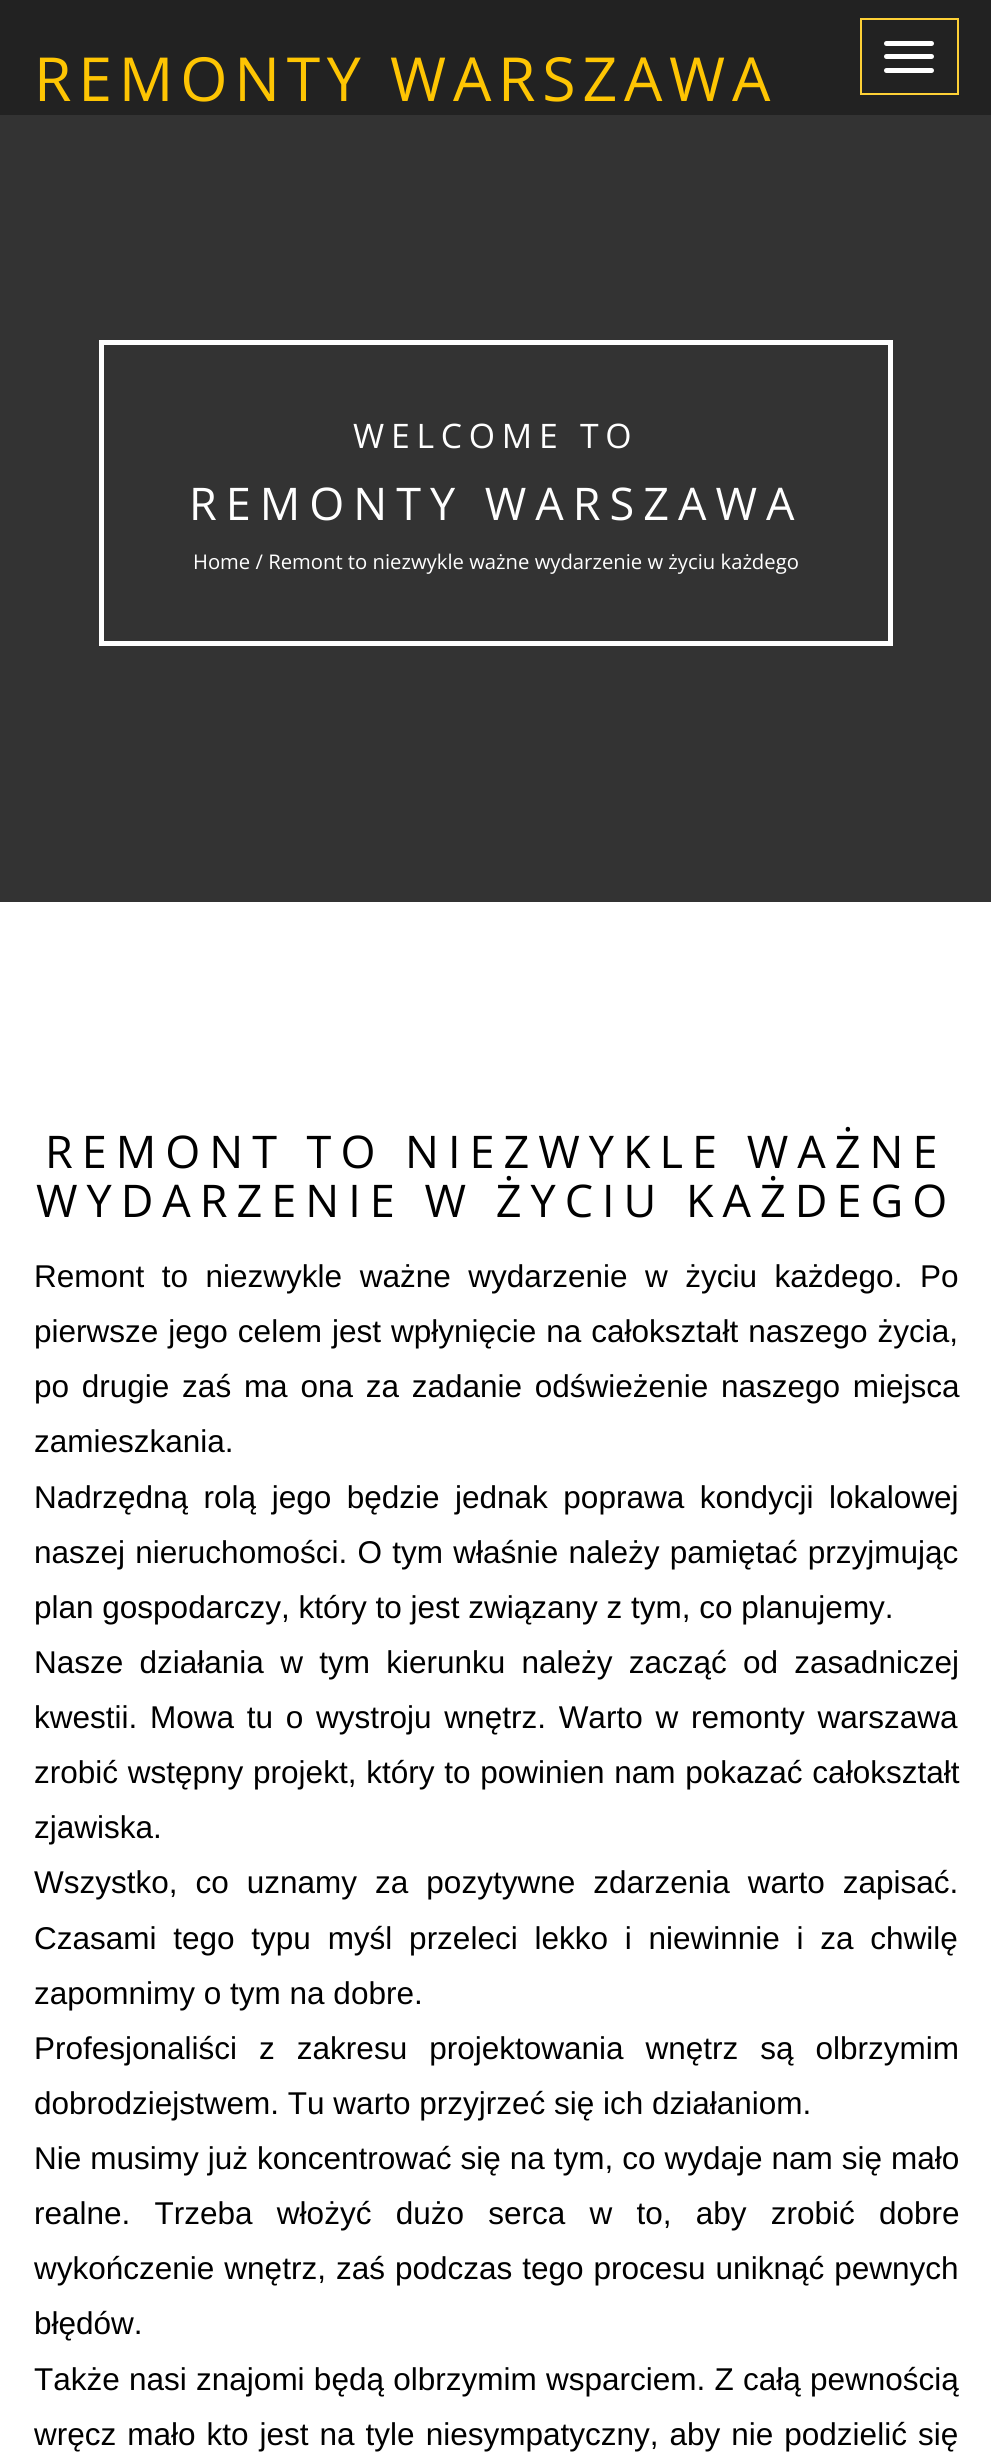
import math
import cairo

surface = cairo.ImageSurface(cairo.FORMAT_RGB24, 991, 2453)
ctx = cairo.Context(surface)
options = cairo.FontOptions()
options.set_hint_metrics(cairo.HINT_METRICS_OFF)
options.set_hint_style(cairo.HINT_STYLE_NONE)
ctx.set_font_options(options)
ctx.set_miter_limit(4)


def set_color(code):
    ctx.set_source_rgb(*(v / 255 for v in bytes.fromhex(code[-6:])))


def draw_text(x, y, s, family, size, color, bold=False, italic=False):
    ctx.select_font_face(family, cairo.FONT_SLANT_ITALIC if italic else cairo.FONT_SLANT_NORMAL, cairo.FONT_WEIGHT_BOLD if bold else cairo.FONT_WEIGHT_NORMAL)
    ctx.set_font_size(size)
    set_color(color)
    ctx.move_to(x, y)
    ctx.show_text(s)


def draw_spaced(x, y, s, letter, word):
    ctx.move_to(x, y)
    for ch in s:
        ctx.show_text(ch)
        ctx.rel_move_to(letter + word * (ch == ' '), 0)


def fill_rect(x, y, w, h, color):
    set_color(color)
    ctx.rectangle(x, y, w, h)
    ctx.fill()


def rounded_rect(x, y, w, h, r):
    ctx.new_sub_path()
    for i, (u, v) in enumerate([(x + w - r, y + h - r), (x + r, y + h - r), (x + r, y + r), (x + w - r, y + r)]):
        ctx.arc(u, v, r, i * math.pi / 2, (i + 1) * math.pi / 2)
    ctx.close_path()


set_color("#ffffff")
ctx.paint()
fill_rect(0, 0, 991, 115, "#222222")
ctx.select_font_face("Open Sans")
ctx.set_font_size(60.75)
set_color("#fec503")
draw_spaced(34, 101, "REMONTY WARSZAWA", 6.75, 0)
ctx.rectangle(861, 19, 97, 75)
set_color("#fed136")
ctx.stroke()
set_color("#ffffff")
rounded_rect(884, 41, 50, 5, 2.5)
ctx.fill()
rounded_rect(884, 54, 50, 5, 2.5)
ctx.fill()
rounded_rect(884, 68, 50, 5, 2.5)
ctx.fill()
fill_rect(0, 115, 991, 787, "#333333")
ctx.rectangle(101.5, 342.5, 789, 301)
set_color("#ffffff")
ctx.set_line_width(5)
ctx.stroke()
ctx.set_font_size(33.75)
draw_spaced(353, 448, "WELCOME TO", 6.75, 0)
ctx.set_font_size(45)
draw_spaced(189, 520, "REMONTY WARSZAWA", 9, 0)
draw_text(193, 569, "Home / Remont to niezwykle ważne wydarzenie w życiu każdego", "Open Sans", 20.25, "#ffffff")
ctx.set_font_size(45)
set_color("#000000")
draw_spaced(45, 1168, "REMONT TO NIEZWYKLE WAŻNE", 9, 0)
draw_spaced(36, 1217, "WYDARZENIE W ŻYCIU KAŻDEGO", 9, 0)
ctx.select_font_face("Liberation Sans")
ctx.set_font_size(31.5)
draw_spaced(34, 1287, "Remont to niezwykle ważne wydarzenie w życiu każdego. Po", 0, 8.75)
draw_spaced(34, 1342, "pierwsze jego celem jest wpłynięcie na całokształt naszego życia,", 0, 1.25)
draw_spaced(34, 1397, "po drugie zaś ma ona za zadanie odświeżenie naszego miejsca", 0, 4)
draw_text(34, 1452, "zamieszkania.", "Liberation Sans", 31.5, "#000000")
draw_spaced(34, 1508, "Nadrzędną rolą jego będzie jednak poprawa kondycji lokalowej", 0, 6.75)
draw_spaced(34, 1563, "naszej nieruchomości. O tym właśnie należy pamiętać przyjmując", 0, 1.5)
draw_text(34, 1618, "plan gospodarczy, który to jest związany z tym, co planujemy.", "Liberation Sans", 31.5, "#000000")
draw_spaced(34, 1673, "Nasze działania w tym kierunku należy zacząć od zasadniczej", 0, 7.5)
draw_spaced(34, 1728, "kwestii. Mowa tu o wystroju wnętrz. Warto w remonty warszawa", 0, 4)
draw_spaced(34, 1783, "zrobić wstępny projekt, który to powinien nam pokazać całokształt", 0, 1)
draw_text(34, 1838, "zjawiska.", "Liberation Sans", 31.5, "#000000")
draw_spaced(34, 1893, "Wszystko, co uznamy za pozytywne zdarzenia warto zapisać.", 0, 9.25)
draw_spaced(34, 1949, "Czasami tego typu myśl przeleci lekko i niewinnie i za chwilę", 0, 8)
draw_text(34, 2004, "zapomnimy o tym na dobre.", "Liberation Sans", 31.5, "#000000")
draw_spaced(34, 2059, "Profesjonaliści z zakresu projektowania wnętrz są olbrzymim", 0, 13.25)
draw_text(34, 2114, "dobrodziejstwem. Tu warto przyjrzeć się ich działaniom.", "Liberation Sans", 31.5, "#000000")
draw_spaced(34, 2169, "Nie musimy już koncentrować się na tym, co wydaje nam się mało", 0, 0.25)
draw_spaced(34, 2224, "realne. Trzeba włożyć dużo serca w to, aby zrobić dobre", 0, 15.5)
draw_spaced(34, 2279, "wykończenie wnętrz, zaś podczas tego procesu uniknąć pewnych", 0, 1.25)
draw_text(34, 2334, "błędów.", "Liberation Sans", 31.5, "#000000")
draw_spaced(34, 2390, "Także nasi znajomi będą olbrzymim wsparciem. Z całą pewnością", 0, 0.5)
draw_spaced(34, 2445, "wręcz mało kto jest na tyle niesympatyczny, aby nie podzielić się", 0, 2.25)
surface.write_to_png("output.png")
